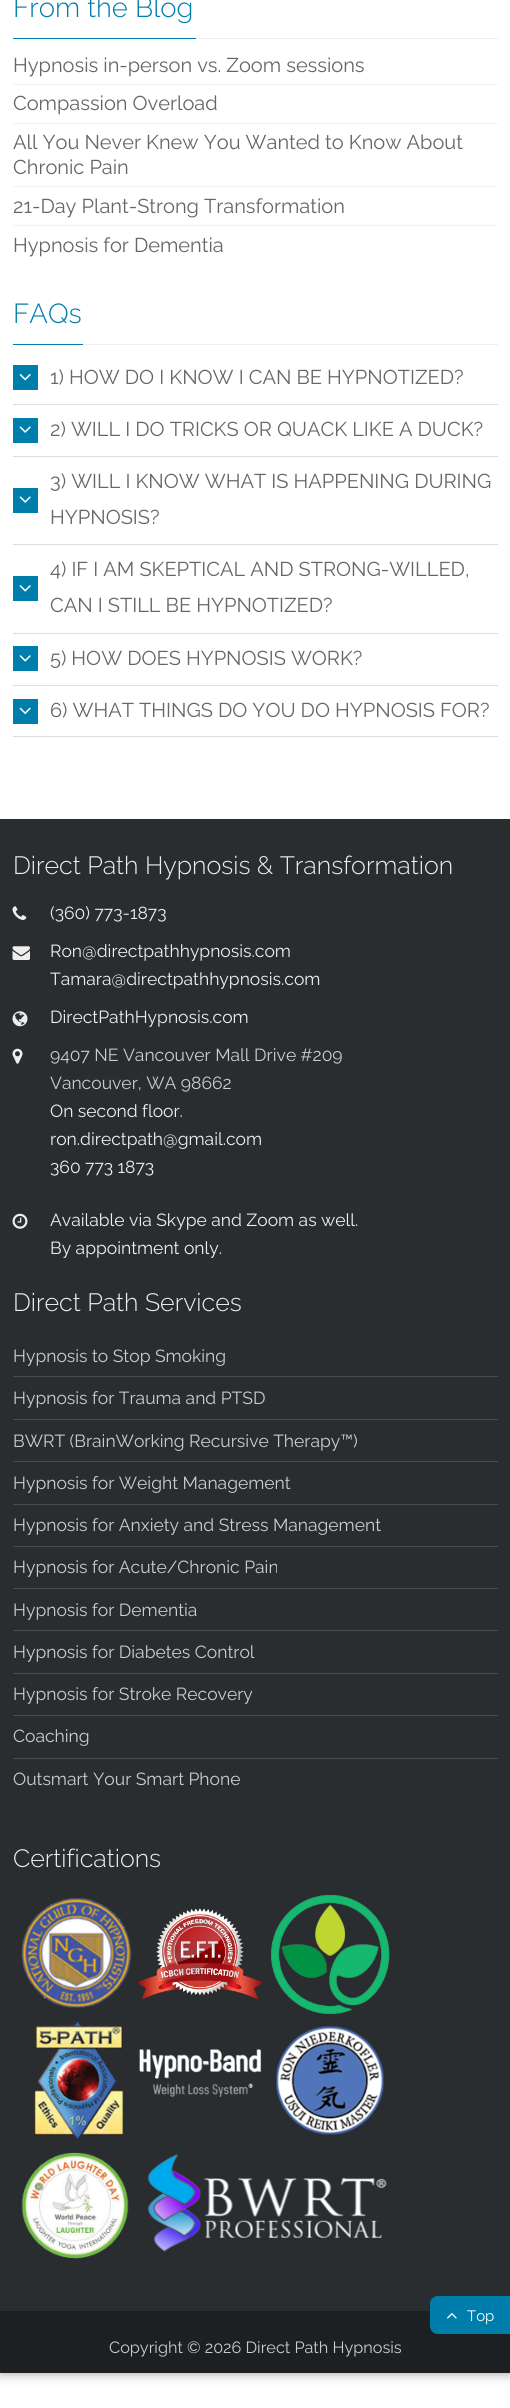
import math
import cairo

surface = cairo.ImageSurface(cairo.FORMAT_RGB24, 510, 2408)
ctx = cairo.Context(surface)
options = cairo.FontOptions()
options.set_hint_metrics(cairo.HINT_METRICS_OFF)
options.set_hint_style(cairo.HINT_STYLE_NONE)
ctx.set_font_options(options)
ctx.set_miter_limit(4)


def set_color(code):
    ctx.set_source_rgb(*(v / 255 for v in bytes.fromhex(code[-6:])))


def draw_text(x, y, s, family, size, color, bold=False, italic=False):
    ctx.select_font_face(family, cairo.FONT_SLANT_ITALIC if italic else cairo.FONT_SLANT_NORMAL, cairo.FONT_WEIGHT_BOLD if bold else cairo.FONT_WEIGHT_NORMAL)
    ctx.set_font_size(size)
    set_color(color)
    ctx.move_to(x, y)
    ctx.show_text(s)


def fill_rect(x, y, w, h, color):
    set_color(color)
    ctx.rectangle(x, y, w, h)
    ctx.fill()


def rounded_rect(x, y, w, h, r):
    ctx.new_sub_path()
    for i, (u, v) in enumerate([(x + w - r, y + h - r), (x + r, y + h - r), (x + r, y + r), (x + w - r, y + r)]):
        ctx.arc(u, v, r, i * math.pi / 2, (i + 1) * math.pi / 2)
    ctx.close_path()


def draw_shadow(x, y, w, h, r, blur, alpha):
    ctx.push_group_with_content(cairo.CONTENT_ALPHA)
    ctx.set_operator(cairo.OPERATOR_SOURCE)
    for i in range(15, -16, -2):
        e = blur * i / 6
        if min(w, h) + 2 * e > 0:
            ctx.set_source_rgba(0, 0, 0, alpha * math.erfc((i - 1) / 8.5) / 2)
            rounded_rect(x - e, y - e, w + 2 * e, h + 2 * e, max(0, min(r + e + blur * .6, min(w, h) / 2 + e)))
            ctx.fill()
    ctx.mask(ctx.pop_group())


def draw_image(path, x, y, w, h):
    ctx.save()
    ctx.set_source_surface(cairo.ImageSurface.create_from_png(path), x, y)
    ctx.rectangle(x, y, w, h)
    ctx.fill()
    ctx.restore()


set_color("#ffffff")
ctx.paint()
set_color("#999999")
draw_shadow(0, -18, 510, 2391, 0, 6, 1)
fill_rect(0, 0, 510, 819, "#ffffff")
fill_rect(196, 38, 302, 1, "#eeeeee")
draw_text(13, 17, "From the Blog", "Raleway Light", 27.5, "#007eab")
fill_rect(13, 38, 183, 1, "#007eab")
fill_rect(13, 84, 485, 1, "#f2f2f2")
draw_text(13, 72, "Hypnosis in-person vs. Zoom sessions", "Raleway", 20, "#666666")
fill_rect(13, 123, 485, 1, "#f2f2f2")
draw_text(13, 110, "Compassion Overload", "Raleway", 20, "#666666")
fill_rect(13, 186, 485, 1, "#f2f2f2")
draw_text(13, 149, "All You Never Knew You Wanted to Know About", "Raleway", 20, "#666666")
draw_text(13, 174, "Chronic Pain", "Raleway", 20, "#666666")
fill_rect(13, 225, 485, 1, "#f2f2f2")
draw_text(13, 213, "21-Day Plant-Strong Transformation", "Raleway", 20, "#666666")
draw_text(13, 252, "Hypnosis for Dementia", "Raleway", 20, "#666666")
fill_rect(83, 344, 415, 1, "#eeeeee")
draw_text(13, 323, "FAQs", "Raleway Light", 27.5, "#007eab")
fill_rect(13, 344, 70, 1, "#007eab")
fill_rect(13, 404, 485, 1, "#dddddd")
fill_rect(13, 365, 25, 25, "#007eab")
draw_image("assets/img1.png", 19, 373, 12, 8)
draw_text(50, 384, "1) HOW DO I KNOW I CAN BE HYPNOTIZED?", "Raleway", 20, "#666666")
fill_rect(13, 456, 485, 1, "#dddddd")
fill_rect(13, 418, 25, 25, "#007eab")
draw_image("assets/img2.png", 19, 426, 12, 7)
draw_text(50, 436, "2) WILL I DO TRICKS OR QUACK LIKE A DUCK?", "Raleway", 20, "#666666")
fill_rect(13, 544, 485, 1, "#dddddd")
draw_text(50, 488, "3) WILL I KNOW WHAT IS HAPPENING DURING", "Raleway", 20, "#666666")
fill_rect(13, 488, 25, 25, "#007eab")
draw_image("assets/img2.png", 19, 496, 12, 7)
draw_text(50, 524, "HYPNOSIS?", "Raleway", 20, "#666666")
fill_rect(13, 633, 485, 1, "#dddddd")
draw_text(50, 576, "4) IF I AM SKEPTICAL AND STRONG-WILLED,", "Raleway", 20, "#666666")
fill_rect(13, 576, 25, 25, "#007eab")
draw_image("assets/img3.png", 19, 585, 12, 7)
draw_text(50, 612, "CAN I STILL BE HYPNOTIZED?", "Raleway", 20, "#666666")
fill_rect(13, 685, 485, 1, "#dddddd")
fill_rect(13, 646, 25, 25, "#007eab")
draw_image("assets/img3.png", 19, 655, 12, 7)
draw_text(50, 665, "5) HOW DOES HYPNOSIS WORK?", "Raleway", 20, "#666666")
fill_rect(13, 736, 485, 1, "#dddddd")
fill_rect(13, 699, 25, 25, "#007eab")
draw_image("assets/img4.png", 19, 707, 12, 8)
draw_text(50, 717, "6) WHAT THINGS DO YOU DO HYPNOSIS FOR?", "Raleway", 20, "#666666")
fill_rect(0, 819, 510, 1492, "#2a2d30")
draw_text(13, 874, "Direct Path Hypnosis & Transformation", "Raleway Light", 25, "#eeeeee")
draw_image("assets/img5.png", 12, 906, 15, 14)
draw_text(50, 919, "(360) 773-1873", "Raleway", 17.5, "#eeeeee")
draw_image("assets/img6.png", 12, 946, 18, 14)
draw_text(50, 957, "Ron@directpathhypnosis.com", "Raleway", 17.5, "#eeeeee")
draw_text(50, 985, "Tamara@directpathhypnosis.com", "Raleway", 17.5, "#eeeeee")
draw_image("assets/img7.png", 12, 1011, 16, 16)
draw_text(50, 1023, "DirectPathHypnosis.com", "Raleway", 17.5, "#eeeeee")
draw_image("assets/img8.png", 12, 1048, 11, 16)
draw_text(50, 1061, "9407 NE Vancouver Mall Drive #209", "Raleway", 17.5, "#cccccc")
draw_text(50, 1089, "Vancouver, WA 98662", "Raleway", 17.5, "#cccccc")
draw_text(50, 1117, "On second floor.", "Raleway", 17.5, "#eeeeee")
draw_text(50, 1145, "ron.directpath@gmail.com", "Raleway", 17.5, "#eeeeee")
draw_text(50, 1173, "360 773 1873", "Raleway", 17.5, "#eeeeee")
draw_image("assets/img9.png", 12, 1213, 16, 16)
draw_text(50, 1226, "Available via Skype and Zoom as well.", "Raleway", 17.5, "#eeeeee")
draw_text(50, 1254, "By appointment only.", "Raleway", 17.5, "#eeeeee")
draw_text(13, 1311, "Direct Path Services", "Raleway Light", 25, "#eeeeee")
fill_rect(13, 1376, 485, 1, "#454d54")
draw_text(13, 1362, "Hypnosis to Stop Smoking", "Raleway", 17.5, "#cccccc")
fill_rect(13, 1419, 485, 1, "#454d54")
draw_text(13, 1404, "Hypnosis for Trauma and PTSD", "Raleway", 17.5, "#cccccc")
fill_rect(13, 1461, 485, 1, "#454d54")
draw_text(13, 1447, "BWRT (BrainWorking Recursive Therapy™)", "Raleway", 17.5, "#cccccc")
fill_rect(13, 1504, 485, 1, "#454d54")
draw_text(13, 1489, "Hypnosis for Weight Management", "Raleway", 17.5, "#cccccc")
fill_rect(13, 1546, 485, 1, "#454d54")
draw_text(13, 1531, "Hypnosis for Anxiety and Stress Management", "Raleway", 17.5, "#cccccc")
fill_rect(13, 1588, 485, 1, "#454d54")
draw_text(13, 1573, "Hypnosis for Acute/Chronic Pain", "Raleway", 17.5, "#cccccc")
fill_rect(13, 1630, 485, 1, "#454d54")
draw_text(13, 1616, "Hypnosis for Dementia", "Raleway", 17.5, "#cccccc")
fill_rect(13, 1673, 485, 1, "#454d54")
draw_text(13, 1658, "Hypnosis for Diabetes Control", "Raleway", 17.5, "#cccccc")
fill_rect(13, 1715, 485, 1, "#454d54")
draw_text(13, 1700, "Hypnosis for Stroke Recovery", "Raleway", 17.5, "#cccccc")
fill_rect(13, 1758, 485, 1, "#454d54")
draw_text(13, 1742, "Coaching", "Raleway", 17.5, "#cccccc")
draw_text(13, 1785, "Outsmart Your Smart Phone", "Raleway", 17.5, "#cccccc")
draw_text(13, 1867, "Certifications", "Raleway Light", 25, "#eeeeee")
draw_image("assets/img10.png", 21, 1898, 111, 110)
draw_image("assets/img11.png", 137, 1908, 126, 92)
draw_image("assets/img12.png", 271, 1895, 119, 119)
draw_image("assets/img13.png", 33, 2019, 92, 123)
draw_image("assets/img14.png", 139, 2049, 123, 48)
draw_image("assets/img15.png", 276, 2026, 108, 109)
draw_image("assets/img16.png", 21, 2152, 108, 107)
draw_image("assets/img17.png", 147, 2154, 240, 98)
fill_rect(0, 2311, 510, 62, "#1d2022")
draw_text(109, 2353, "Copyright © 2026 Direct Path Hypnosis", "Raleway", 16.25, "#cccccc")
set_color("#007eab")
ctx.new_path()
ctx.move_to(438, 2296)
ctx.line_to(510, 2296)
ctx.line_to(510, 2334)
ctx.line_to(438, 2334)
ctx.curve_to(433.5, 2334, 430, 2330.5, 430, 2326)
ctx.line_to(430, 2304)
ctx.curve_to(430, 2299.5, 433.5, 2296, 438, 2296)
ctx.close_path()
ctx.fill()
draw_image("assets/img18.png", 447, 2313, 10, 6)
draw_text(467, 2321, "Top", "Raleway", 15, "#ffffff")
surface.write_to_png("output.png")
